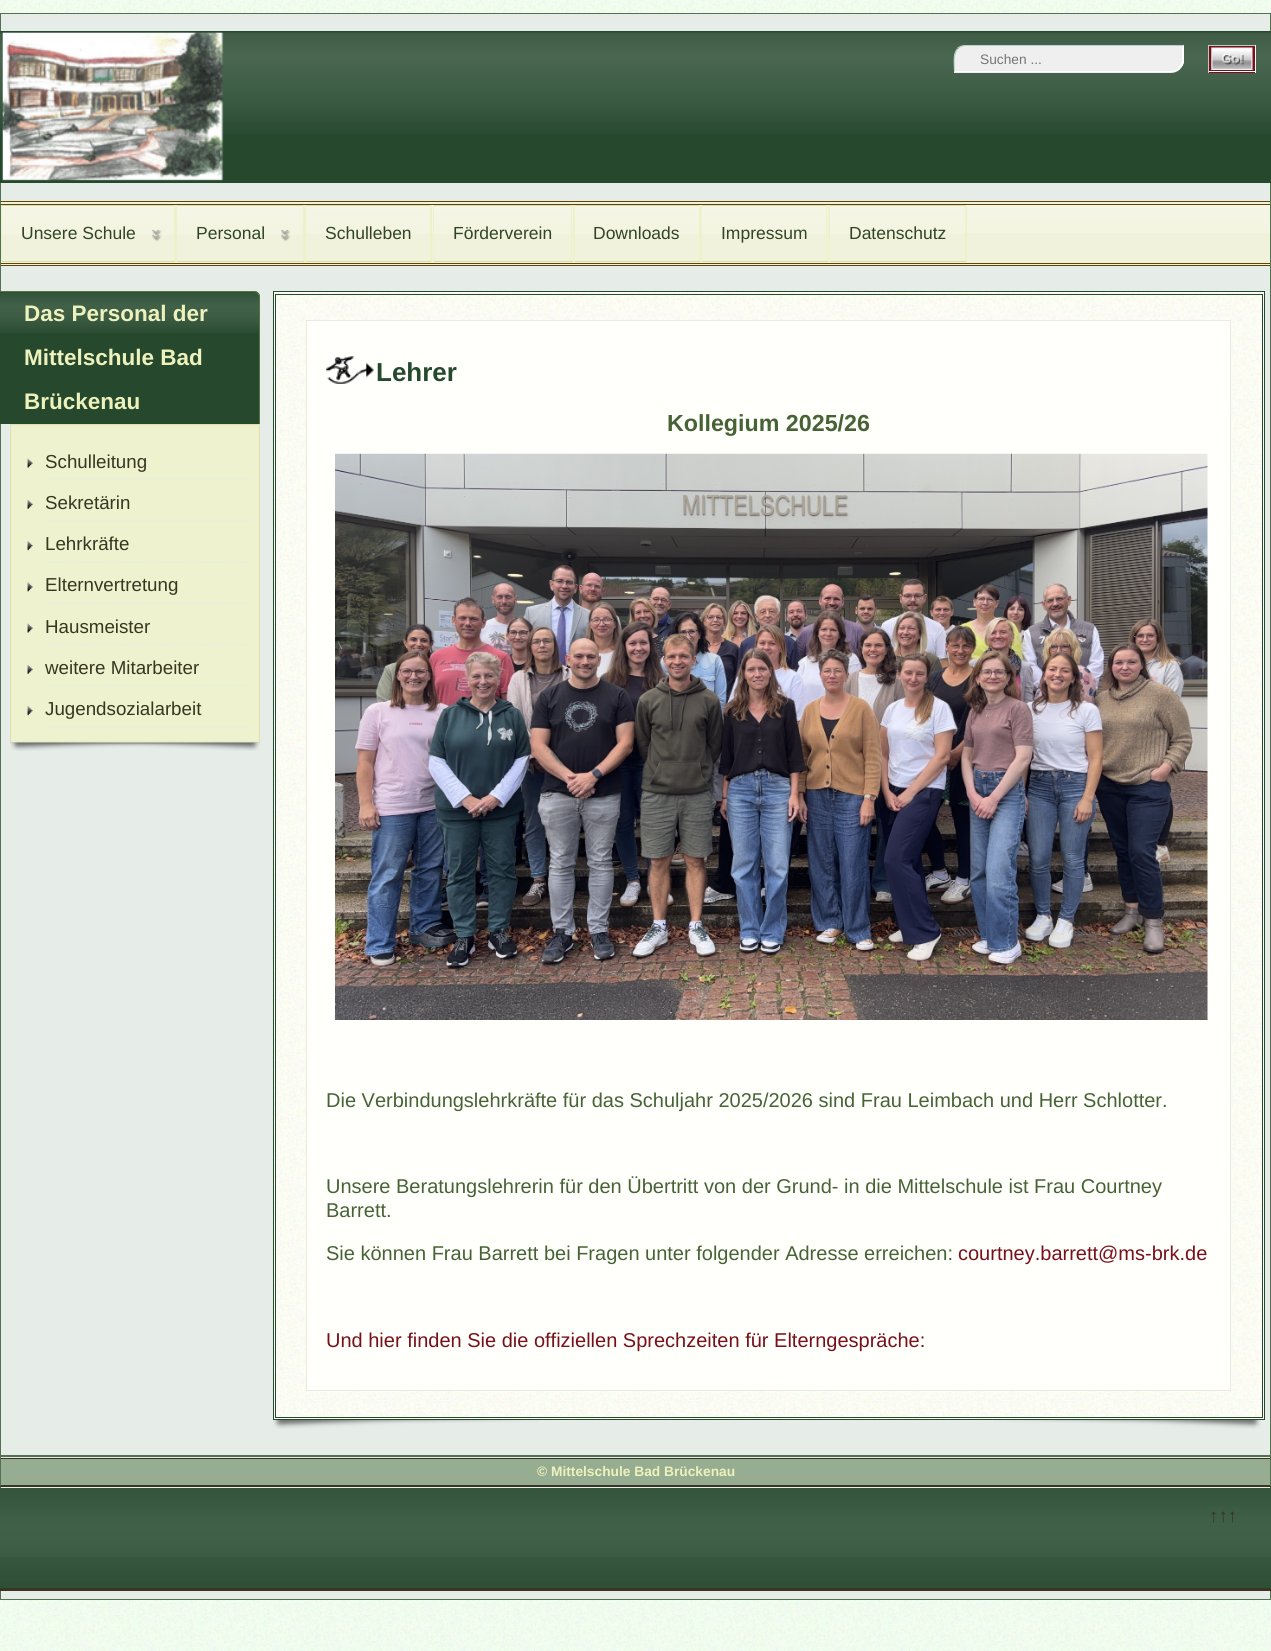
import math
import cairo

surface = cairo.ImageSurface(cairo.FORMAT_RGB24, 1271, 1651)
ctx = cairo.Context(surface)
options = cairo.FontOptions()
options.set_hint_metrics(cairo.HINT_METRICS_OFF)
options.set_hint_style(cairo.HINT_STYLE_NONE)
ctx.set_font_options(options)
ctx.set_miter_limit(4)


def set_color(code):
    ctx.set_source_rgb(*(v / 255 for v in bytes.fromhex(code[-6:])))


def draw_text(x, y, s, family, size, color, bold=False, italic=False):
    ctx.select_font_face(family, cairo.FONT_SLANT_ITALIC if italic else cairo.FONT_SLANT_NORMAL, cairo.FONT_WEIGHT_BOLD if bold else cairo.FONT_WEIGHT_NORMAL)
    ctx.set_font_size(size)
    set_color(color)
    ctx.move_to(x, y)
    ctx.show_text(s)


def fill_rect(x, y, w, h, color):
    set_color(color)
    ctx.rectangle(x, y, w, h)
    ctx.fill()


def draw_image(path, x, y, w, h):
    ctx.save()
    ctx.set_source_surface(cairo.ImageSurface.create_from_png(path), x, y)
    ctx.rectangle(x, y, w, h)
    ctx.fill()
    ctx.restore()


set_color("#f2fff0")
ctx.paint()
draw_image("assets/img1.png", 0, 0, 1271, 1651)
set_color("#e6ede9")
ctx.rectangle(0.5, 13.5, 1270, 1442)
ctx.fill_preserve()
set_color("#537051")
ctx.set_line_width(1)
ctx.stroke()
fill_rect(0, 31, 1271, 152, "#26492e")
draw_image("assets/img2.png", 0, 32, 1271, 102)
draw_image("assets/img3.png", 2, 32, 222, 149)
set_color("#efefef")
ctx.new_path()
ctx.move_to(967, 45)
ctx.line_to(1184, 45)
ctx.line_to(1184, 60)
ctx.curve_to(1184, 67, 1178, 73, 1171, 73)
ctx.line_to(954, 73)
ctx.line_to(954, 58)
ctx.curve_to(954, 51, 960, 45, 967, 45)
ctx.close_path()
ctx.fill()
set_color("#b8cfc8")
ctx.new_path()
ctx.move_to(966, 45)
ctx.curve_to(962, 45, 959, 46, 957, 48)
ctx.line_to(958, 49)
ctx.curve_to(960, 47, 962, 46, 966, 46)
ctx.line_to(1182, 46)
ctx.line_to(1182, 47)
ctx.line_to(1184, 45)
ctx.close_path()
ctx.fill()
set_color("#ffffff")
ctx.new_path()
ctx.move_to(1184, 45)
ctx.line_to(1184, 62.5)
ctx.curve_to(1183, 65, 1182, 67, 1180, 68.5)
ctx.line_to(1179, 67.5)
ctx.curve_to(1181, 65.5, 1182, 63, 1182, 60)
ctx.line_to(1182, 47)
ctx.close_path()
ctx.fill()
ctx.new_path()
ctx.move_to(1180, 69)
ctx.curve_to(1178, 71, 1174, 72, 1171, 72)
ctx.line_to(954, 72)
ctx.line_to(955, 71)
ctx.line_to(1171, 71)
ctx.curve_to(1174, 71, 1177, 70, 1179, 68)
ctx.close_path()
ctx.fill()
set_color("#b8cfc8")
ctx.new_path()
ctx.move_to(957, 48.5)
ctx.curve_to(952, 54.5, 954, 64.5, 954, 72)
ctx.line_to(955, 71)
ctx.curve_to(955, 64, 953.5, 55, 958, 49.5)
ctx.close_path()
ctx.fill()
draw_text(980, 64, "Suchen ...", "Liberation Sans", 13.75, "#757575")
fill_rect(1209, 46, 46, 27, "#78101a")
fill_rect(1208, 45, 48, 1, "#b8cfc8")
fill_rect(1255, 45, 1, 28, "#ffffff")
fill_rect(1208, 71, 48, 1, "#ffffff")
fill_rect(1208, 45, 1, 28, "#b8cfc8")
draw_image("assets/img4.png", 1211, 47, 42, 23)
fill_rect(1, 202, 1269, 63, "#f1f2dc")
draw_image("assets/img5.png", 432, 205, 838, 28)
fill_rect(1, 201, 1269, 1, "#614400")
fill_rect(1, 204, 1269, 1, "#614400")
fill_rect(1, 263, 1269, 1, "#614400")
fill_rect(1, 265, 1269, 1, "#614400")
fill_rect(175, 205, 1, 58, "#edf2cb")
draw_image("assets/img6.png", 2, 206, 172, 36)
fill_rect(1, 205, 174, 1, "#d3deb4")
fill_rect(174, 205, 1, 58, "#edf2cb")
fill_rect(1, 261, 174, 1, "#d3deb4")
fill_rect(1, 205, 1, 58, "#edf2cb")
draw_text(21, 239, "Unsere Schule", "Liberation Sans", 17.5, "#314525")
fill_rect(304, 205, 1, 58, "#edf2cb")
draw_image("assets/img7.png", 177, 206, 126, 36)
fill_rect(176, 205, 128, 1, "#d3deb4")
fill_rect(303, 205, 1, 58, "#edf2cb")
fill_rect(176, 261, 128, 1, "#d3deb4")
fill_rect(176, 205, 1, 58, "#edf2cb")
draw_text(196, 239, "Personal", "Liberation Sans", 17.5, "#314525")
fill_rect(431, 205, 1, 58, "#edf2cb")
draw_image("assets/img8.png", 306, 206, 124, 28)
fill_rect(305, 205, 126, 1, "#d3deb4")
fill_rect(430, 205, 1, 58, "#edf2cb")
fill_rect(305, 261, 126, 1, "#d3deb4")
fill_rect(305, 205, 1, 58, "#edf2cb")
draw_text(325, 239, "Schulleben", "Liberation Sans", 17.5, "#314525")
fill_rect(573, 205, 1, 58, "#edf2cb")
fill_rect(434, 206, 139, 27, "#f1f2dc")
draw_image("assets/img9.png", 434, 206, 139, 28)
fill_rect(433, 205, 140, 1, "#d3deb4")
fill_rect(571, 205, 1, 58, "#edf2cb")
fill_rect(433, 261, 140, 1, "#d3deb4")
fill_rect(433, 205, 1, 58, "#edf2cb")
draw_text(453, 239, "Förderverein", "Liberation Sans", 17.5, "#314525")
fill_rect(700, 205, 1, 58, "#edf2cb")
fill_rect(575, 206, 124, 27, "#f1f2dc")
draw_image("assets/img8.png", 575, 206, 124, 28)
fill_rect(574, 205, 126, 1, "#d3deb4")
fill_rect(699, 205, 1, 58, "#edf2cb")
fill_rect(574, 261, 126, 1, "#d3deb4")
fill_rect(574, 205, 1, 58, "#edf2cb")
draw_text(593, 239, "Downloads", "Liberation Sans", 17.5, "#314525")
fill_rect(828, 205, 1, 58, "#edf2cb")
fill_rect(702, 206, 126, 27, "#f1f2dc")
draw_image("assets/img10.png", 702, 206, 126, 28)
fill_rect(701, 205, 127, 1, "#d3deb4")
fill_rect(826, 205, 1, 58, "#edf2cb")
fill_rect(701, 261, 127, 1, "#d3deb4")
fill_rect(701, 205, 1, 58, "#edf2cb")
draw_text(721, 239, "Impressum", "Liberation Sans", 17.5, "#314525")
fill_rect(966, 205, 1, 58, "#edf2cb")
fill_rect(830, 206, 135, 27, "#f1f2dc")
draw_image("assets/img11.png", 830, 206, 135, 28)
fill_rect(829, 205, 137, 1, "#d3deb4")
fill_rect(965, 205, 1, 58, "#edf2cb")
fill_rect(829, 261, 137, 1, "#d3deb4")
fill_rect(829, 205, 1, 58, "#edf2cb")
draw_text(849, 239, "Datenschutz", "Liberation Sans", 17.5, "#314525")
set_color("#26492e")
ctx.new_path()
ctx.move_to(0, 291)
ctx.line_to(254, 291)
ctx.curve_to(257.5, 291, 260, 293.5, 260, 297)
ctx.line_to(260, 424)
ctx.line_to(-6, 424)
ctx.line_to(-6, 297)
ctx.curve_to(-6, 293.5, -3.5, 291, 0, 291)
ctx.close_path()
ctx.fill()
draw_image("assets/img12.png", 0, 292, 260, 41)
set_color("#567840")
ctx.new_path()
ctx.move_to(-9, 292)
ctx.curve_to(-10, 292, -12, 293, -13, 294)
ctx.line_to(-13, 293)
ctx.line_to(-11, 291)
ctx.line_to(256, 291)
ctx.line_to(258, 293)
ctx.line_to(258, 294)
ctx.curve_to(257, 293, 255, 292, 254, 292)
ctx.close_path()
ctx.fill()
ctx.new_path()
ctx.move_to(259, 424)
ctx.line_to(259, 298)
ctx.curve_to(259, 296, 258, 295, 258, 294)
ctx.line_to(258, 293)
ctx.curve_to(259, 294, 260, 296, 260, 298)
ctx.line_to(260, 424)
ctx.close_path()
ctx.fill()
draw_text(24, 321, "Das Personal der", "Liberation Sans", 22.5, "#edf2bd", bold=True)
draw_text(24, 365, "Mittelschule Bad", "Liberation Sans", 22.5, "#edf2bd", bold=True)
draw_text(24, 409, "Brückenau", "Liberation Sans", 22.5, "#edf2bd", bold=True)
ctx.rectangle(10.5, 424.5, 249, 318)
set_color("#e3debc")
ctx.stroke()
set_color("#eef2ce")
ctx.rectangle(11.5, 425.5, 247, 315)
ctx.fill_preserve()
set_color("#edf2bd")
ctx.stroke()
draw_image("assets/img13.png", 27, 458, 6, 10)
ctx.new_path()
ctx.move_to(45, 479.5)
ctx.line_to(250, 479.5)
set_color("#e1edeb")
ctx.set_line_width(1.2)
ctx.set_dash([1.25, 1.25])
ctx.stroke()
draw_text(45, 468, "Schulleitung", "Liberation Sans", 18.75, "#383622")
draw_image("assets/img14.png", 27, 500, 6, 9)
ctx.new_path()
ctx.move_to(45, 520.5)
ctx.line_to(250, 520.5)
set_color("#e1edeb")
ctx.stroke()
draw_text(45, 509, "Sekretärin", "Liberation Sans", 18.75, "#383622")
draw_image("assets/img15.png", 27, 541, 6, 10)
ctx.new_path()
ctx.move_to(45, 562)
ctx.line_to(250, 562)
set_color("#e1edeb")
ctx.stroke()
draw_text(45, 550, "Lehrkräfte", "Liberation Sans", 18.75, "#383622")
draw_image("assets/img16.png", 27, 582, 6, 10)
ctx.new_path()
ctx.move_to(45, 603)
ctx.line_to(250, 603)
set_color("#e1edeb")
ctx.stroke()
draw_text(45, 591, "Elternvertretung", "Liberation Sans", 18.75, "#383622")
draw_image("assets/img13.png", 27, 623, 6, 10)
ctx.new_path()
ctx.move_to(45, 644.5)
ctx.line_to(250, 644.5)
set_color("#e1edeb")
ctx.stroke()
draw_text(45, 633, "Hausmeister", "Liberation Sans", 18.75, "#383622")
draw_image("assets/img14.png", 27, 665, 6, 9)
ctx.new_path()
ctx.move_to(45, 685.5)
ctx.line_to(250, 685.5)
set_color("#e1edeb")
ctx.stroke()
draw_text(45, 674, "weitere Mitarbeiter", "Liberation Sans", 18.75, "#383622")
draw_image("assets/img15.png", 27, 706, 6, 10)
ctx.new_path()
ctx.move_to(45, 727)
ctx.line_to(250, 727)
set_color("#e1edeb")
ctx.stroke()
draw_text(45, 715, "Jugendsozialarbeit", "Liberation Sans", 18.75, "#383622")
draw_image("assets/img17.png", 10, 742, 250, 9)
draw_image("assets/img18.png", 10, 742, 250, 9)
fill_rect(274, 292, 990, 1127, "#fefff5")
draw_image("assets/img19.png", 272, 291, 992, 1129)
ctx.rectangle(273.5, 291.5, 991, 1128)
set_color("#26492e")
ctx.set_line_width(1)
ctx.set_dash([])
ctx.stroke()
ctx.rectangle(275.5, 294.5, 987, 1123)
ctx.stroke()
set_color("#fffffc")
ctx.rectangle(306.5, 320.5, 924, 1070)
ctx.fill_preserve()
set_color("#ede8e1")
ctx.stroke()
draw_image("assets/img20.png", 326, 356, 48, 28)
draw_text(376, 381, "Lehrer", "Liberation Sans", 26, "#26492e", bold=True)
draw_text(667, 431, "Kollegium 2025/26", "Liberation Sans", 23.25, "#476335", bold=True)
draw_image("assets/img21.png", 335, 453, 873, 567)
draw_text(326, 1107, "Die Verbindungslehrkräfte für das Schuljahr 2025/2026 sind Frau Leimbach und Herr Schlotter.", "Liberation Sans", 20, "#476335")
draw_text(326, 1193, "Unsere Beratungslehrerin für den Übertritt von der Grund- in die Mittelschule ist Frau Courtney", "Liberation Sans", 20, "#476335")
draw_text(326, 1217, "Barrett.", "Liberation Sans", 20, "#476335")
draw_text(326, 1260, "Sie können Frau Barrett bei Fragen unter folgender Adresse erreichen:", "Liberation Sans", 20, "#476335")
draw_text(958, 1260, "courtney.barrett@ms-brk.de", "Liberation Sans", 20, "#78101a")
draw_text(326, 1347, "Und hier finden Sie die offiziellen Sprechzeiten für Elterngespräche:", "Liberation Sans", 20, "#78101a")
draw_image("assets/img22.png", 273, 1420, 266, 9)
draw_image("assets/img23.png", 994, 1420, 267, 9)
set_color("#e6ede9")
ctx.rectangle(0.5, 1456.5, 1270, 143)
ctx.fill_preserve()
set_color("#537051")
ctx.stroke()
fill_rect(1, 1459, 1269, 26, "#97ad91")
fill_rect(1, 1458, 1269, 1, "#383622")
fill_rect(1, 1485, 1269, 1, "#383622")
draw_text(537, 1476, "© Mittelschule Bad Brückenau", "Liberation Sans", 13.75, "#edf2bd", bold=True)
fill_rect(0, 1488, 1271, 100, "#26492e")
draw_image("assets/img24.png", 0, 1487, 1271, 101)
fill_rect(0, 1486, 1271, 1, "#383622")
fill_rect(0, 1588, 1271, 3, "#383622")
draw_text(1209, 1522, "↑↑↑", "Liberation Sans", 18.75, "#383622")
surface.write_to_png("output.png")
